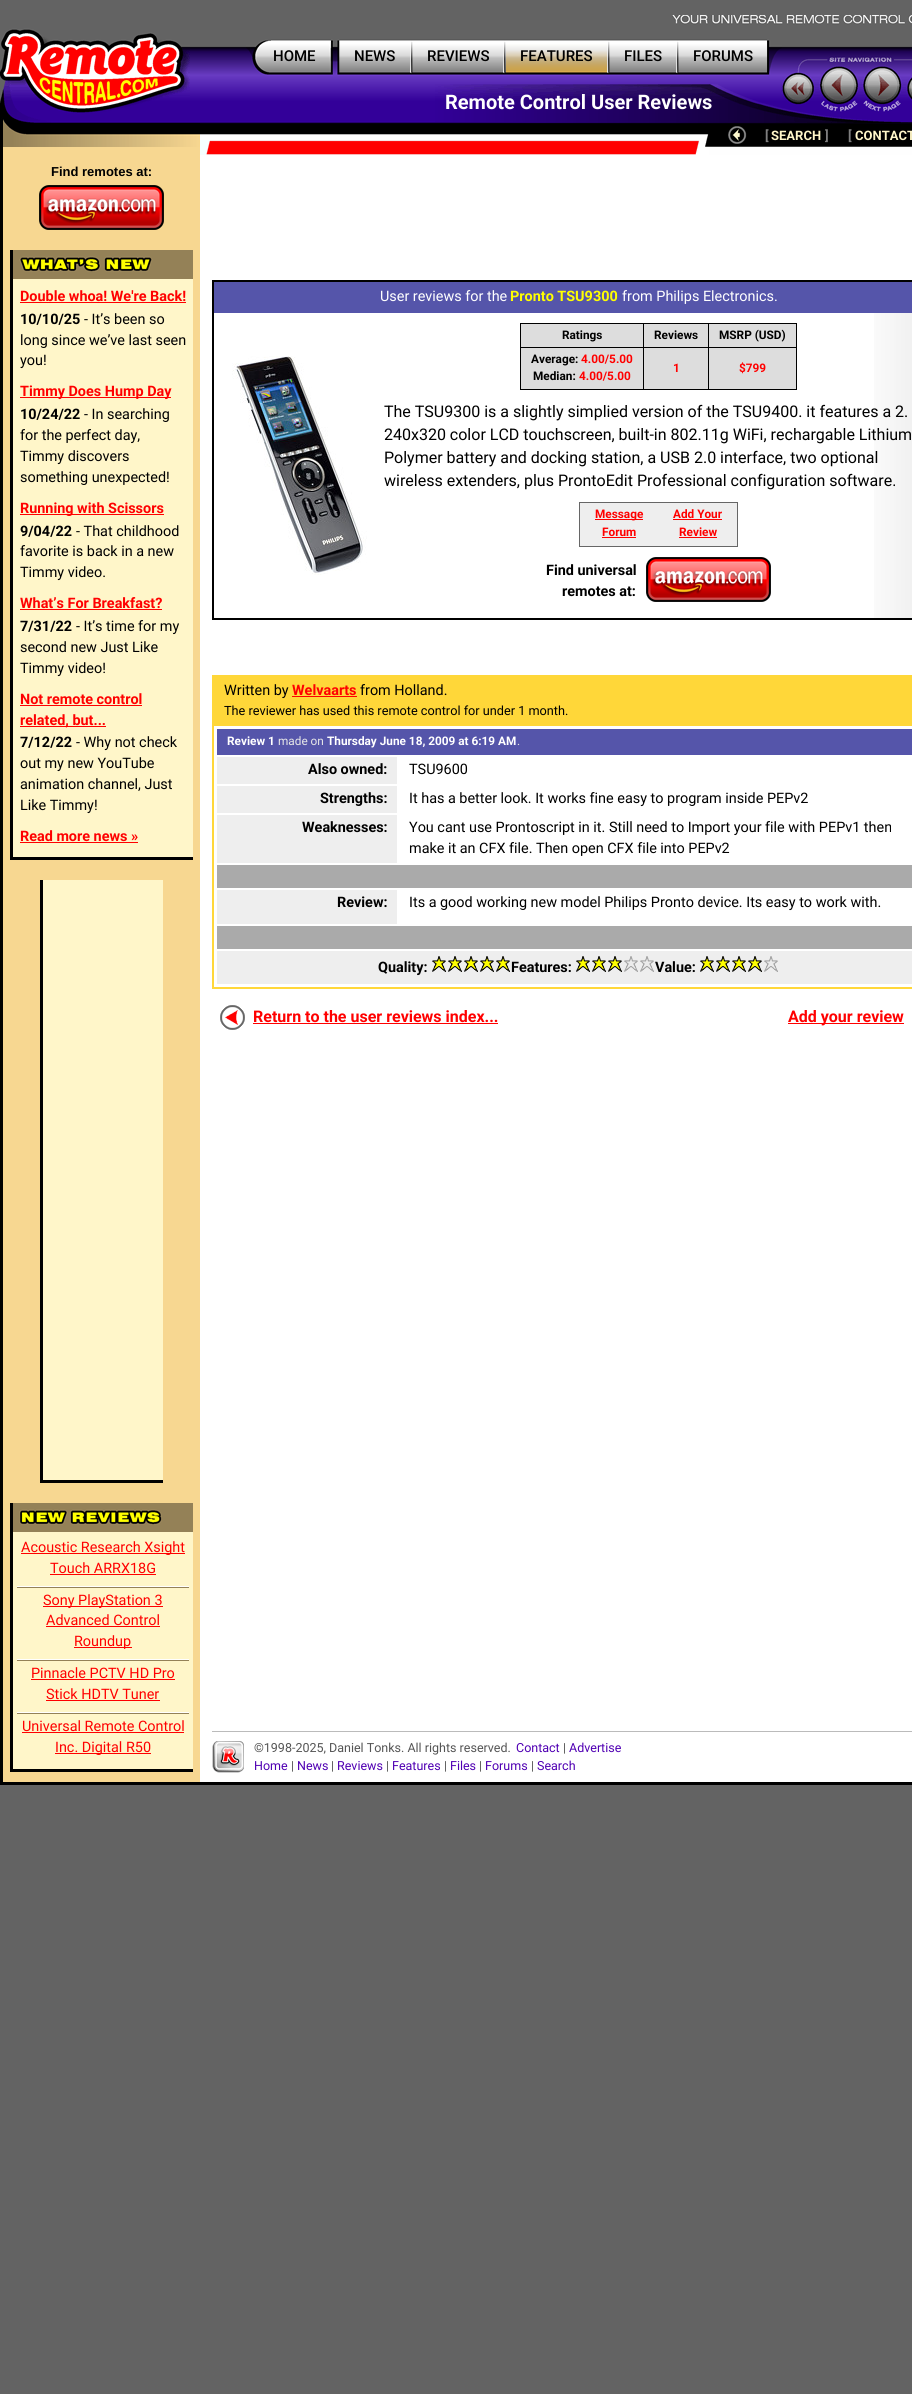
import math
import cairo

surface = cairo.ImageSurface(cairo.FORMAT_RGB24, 912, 2394)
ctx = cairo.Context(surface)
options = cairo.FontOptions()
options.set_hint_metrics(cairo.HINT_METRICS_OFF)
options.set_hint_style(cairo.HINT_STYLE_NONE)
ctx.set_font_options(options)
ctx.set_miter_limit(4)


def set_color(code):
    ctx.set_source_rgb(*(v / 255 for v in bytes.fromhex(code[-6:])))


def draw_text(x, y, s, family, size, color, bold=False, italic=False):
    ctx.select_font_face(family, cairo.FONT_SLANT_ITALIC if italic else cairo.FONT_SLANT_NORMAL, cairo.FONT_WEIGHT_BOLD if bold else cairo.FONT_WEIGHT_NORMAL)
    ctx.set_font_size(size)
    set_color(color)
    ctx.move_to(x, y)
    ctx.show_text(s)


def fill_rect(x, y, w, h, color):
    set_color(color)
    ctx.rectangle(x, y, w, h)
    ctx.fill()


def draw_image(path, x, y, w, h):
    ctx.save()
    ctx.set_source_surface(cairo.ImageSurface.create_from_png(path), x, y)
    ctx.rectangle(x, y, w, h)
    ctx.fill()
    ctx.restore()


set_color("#636363")
ctx.paint()
draw_image("assets/img1.png", 672, 15, 240, 10)
draw_image("assets/img2.png", 0, 28, 190, 95)
draw_image("assets/img3.png", 190, 46, 592, 77)
draw_image("assets/img4.png", 246, 39, 25, 37)
draw_image("assets/img5.png", 271, 39, 58, 37)
draw_text(273, 61, "HOME", "Roboto Medium", 15, "#000000")
draw_image("assets/img6.png", 329, 39, 11, 37)
draw_image("assets/img7.png", 340, 39, 70, 37)
draw_text(354, 61, "NEWS", "Roboto Medium", 15, "#000000")
draw_image("assets/img8.png", 410, 39, 3, 37)
draw_image("assets/img9.png", 413, 39, 90, 37)
draw_text(427, 61, "REVIEWS", "Roboto Medium", 15, "#000000")
draw_image("assets/img8.png", 503, 39, 3, 37)
draw_image("assets/img10.png", 506, 39, 101, 37)
draw_text(520, 61, "FEATURES", "Roboto Medium", 15, "#000000")
draw_image("assets/img8.png", 607, 39, 3, 37)
draw_image("assets/img11.png", 610, 39, 66, 37)
draw_text(624, 61, "FILES", "Roboto Medium", 15, "#000000")
draw_image("assets/img8.png", 676, 39, 3, 37)
draw_image("assets/img12.png", 679, 39, 88, 37)
draw_text(693, 61, "FORUMS", "Roboto Medium", 15, "#000000")
draw_image("assets/img13.png", 767, 39, 15, 37)
draw_image("assets/img14.png", 435, 84, 347, 39)
draw_text(445, 109, "Remote Control User Reviews", "Roboto", 20, "#ffffff", bold=True)
draw_image("assets/img15.png", 782, 46, 130, 77)
fill_rect(3, 147, 197, 1635, "#f7d791")
fill_rect(0, 123, 3, 1659, "#000000")
draw_image("assets/img16.png", 3, 123, 197, 24)
draw_text(51, 176, "Find remotes at:", "Liberation Sans", 13, "#000000", bold=True)
draw_image("assets/img17.png", 39, 185, 125, 45)
fill_rect(10, 250, 183, 610, "#000000")
fill_rect(13, 250, 180, 29, "#948157")
draw_image("assets/img18.png", 19, 256, 134, 16)
fill_rect(13, 279, 180, 578, "#fff6c9")
draw_text(20, 301, "Double whoa! We're Back!", "Roboto", 14.4, "#ff0000", bold=True)
fill_rect(20, 302, 166, 1, "#ff0000")
draw_text(20, 324, "10/10/25", "Roboto", 14.4, "#000000", bold=True)
draw_text(84, 324, "- It’s been so", "Roboto", 14.4, "#000000")
draw_text(20, 345, "long since we’ve last seen", "Roboto", 14.4, "#000000")
draw_text(20, 365, "you!", "Roboto", 14.4, "#000000")
fill_rect(20, 397, 151, 1, "#ff0000")
draw_text(20, 396, "Timmy Does Hump Day", "Roboto", 14.4, "#ff0000", bold=True)
draw_text(20, 419, "10/24/22", "Roboto", 14.4, "#000000", bold=True)
draw_text(84, 419, "- In searching", "Roboto", 14.4, "#000000")
draw_text(20, 440, "for the perfect day,", "Roboto", 14.4, "#000000")
draw_text(20, 461, "Timmy discovers", "Roboto", 14.4, "#000000")
draw_text(20, 482, "something unexpected!", "Roboto", 14.4, "#000000")
fill_rect(20, 514, 144, 1, "#ff0000")
draw_text(20, 513, "Running with Scissors", "Roboto", 14.4, "#ff0000", bold=True)
draw_text(20, 536, "9/04/22", "Roboto", 14.4, "#000000", bold=True)
draw_text(76, 536, "- That childhood", "Roboto", 14.4, "#000000")
draw_text(20, 556, "favorite is back in a new", "Roboto", 14.4, "#000000")
draw_text(20, 577, "Timmy video.", "Roboto", 14.4, "#000000")
draw_text(20, 608, "What’s For Breakfast?", "Roboto", 14.4, "#ff0000", bold=True)
fill_rect(20, 609, 142, 1, "#ff0000")
draw_text(20, 631, "7/31/22", "Roboto", 14.4, "#000000", bold=True)
draw_text(76, 631, "- It’s time for my", "Roboto", 14.4, "#000000")
draw_text(20, 652, "second new Just Like", "Roboto", 14.4, "#000000")
draw_text(20, 673, "Timmy video!", "Roboto", 14.4, "#000000")
draw_text(20, 704, "Not remote control", "Roboto", 14.4, "#ff0000", bold=True)
fill_rect(20, 705, 122, 1, "#ff0000")
fill_rect(20, 726, 86, 1, "#ff0000")
draw_text(20, 725, "related, but...", "Roboto", 14.4, "#ff0000", bold=True)
draw_text(20, 747, "7/12/22", "Roboto", 14.4, "#000000", bold=True)
draw_text(76, 747, "- Why not check", "Roboto", 14.4, "#000000")
draw_text(20, 768, "out my new YouTube", "Roboto", 14.4, "#000000")
draw_text(20, 789, "animation channel, Just", "Roboto", 14.4, "#000000")
draw_text(20, 810, "Like Timmy!", "Roboto", 14.4, "#000000")
draw_text(20, 841, "Read more news »", "Roboto", 14.4, "#ff0000", bold=True)
fill_rect(20, 842, 118, 1, "#ff0000")
fill_rect(40, 880, 123, 603, "#000000")
fill_rect(43, 880, 120, 600, "#fff6c9")
fill_rect(10, 1503, 183, 269, "#000000")
fill_rect(13, 1503, 180, 29, "#948157")
draw_image("assets/img19.png", 19, 1509, 143, 16)
fill_rect(13, 1532, 180, 237, "#fff6c9")
fill_rect(21, 1553, 164, 1, "#ff0000")
draw_text(21, 1552, "Acoustic Research Xsight", "Roboto", 14.4, "#ff0000")
draw_text(50, 1573, "Touch ARRX18G", "Roboto", 14.4, "#ff0000")
fill_rect(50, 1574, 106, 1, "#ff0000")
draw_image("assets/img20.png", 17, 1586, 172, 2)
fill_rect(43, 1606, 120, 1, "#ff0000")
draw_text(43, 1605, "Sony PlayStation 3", "Roboto", 14.4, "#ff0000")
draw_text(46, 1625, "Advanced Control", "Roboto", 14.4, "#ff0000")
fill_rect(46, 1626, 114, 1, "#ff0000")
fill_rect(74, 1647, 58, 1, "#ff0000")
draw_text(74, 1646, "Roundup", "Roboto", 14.4, "#ff0000")
draw_image("assets/img20.png", 17, 1659, 172, 2)
draw_text(31, 1678, "Pinnacle PCTV HD Pro", "Roboto", 14.4, "#ff0000")
fill_rect(31, 1679, 144, 1, "#ff0000")
draw_text(46, 1699, "Stick HDTV Tuner", "Roboto", 14.4, "#ff0000")
fill_rect(46, 1700, 114, 1, "#ff0000")
draw_image("assets/img20.png", 17, 1712, 172, 2)
draw_text(22, 1731, "Universal Remote Control", "Roboto", 14.4, "#ff0000")
fill_rect(22, 1732, 162, 1, "#ff0000")
fill_rect(55, 1753, 96, 1, "#ff0000")
draw_text(55, 1752, "Inc. Digital R50", "Roboto", 14.4, "#ff0000")
fill_rect(200, 135, 712, 1647, "#ffffff")
draw_image("assets/img21.png", 200, 123, 41, 32)
draw_image("assets/img22.png", 200, 140, 10, 15)
draw_image("assets/img23.png", 241, 123, 671, 32)
draw_image("assets/img24.png", 709, 134, 203, 21)
draw_image("assets/img25.png", 695, 134, 14, 21)
draw_image("assets/img26.png", 728, 126, 19, 18)
draw_text(765, 140, "[", "Roboto", 13, "#7f7f7f", bold=True)
draw_text(771, 140, "SEARCH", "Roboto", 13, "#fff6c9", bold=True)
draw_text(825, 140, "]", "Roboto", 13, "#7f7f7f", bold=True)
draw_text(848, 140, "[", "Roboto", 13, "#7f7f7f", bold=True)
draw_text(855, 140, "CONTACT", "Roboto", 13, "#fff6c9", bold=True)
fill_rect(212, 280, 700, 340, "#000000")
fill_rect(214, 313, 660, 305, "#ffffff")
fill_rect(214, 282, 698, 31, "#5555aa")
draw_text(380, 301, "User reviews for the", "Roboto", 14.4, "#ffffff")
draw_text(510, 301, "Pronto TSU9300", "Roboto", 14.4, "#ffff00", bold=True)
draw_text(622, 301, "from Philips Electronics.", "Roboto", 14.4, "#ffffff")
draw_image("assets/img27.png", 232, 356, 135, 219)
draw_image("assets/img28.png", 874, 313, 38, 305)
fill_rect(520, 323, 277, 67, "#000000")
fill_rect(521, 324, 122, 23, "#dddddd")
draw_text(562, 339, "Ratings", "Roboto", 11.8, "#000000", bold=True)
fill_rect(644, 324, 64, 23, "#dddddd")
draw_text(654, 339, "Reviews", "Roboto", 11.8, "#000000", bold=True)
fill_rect(709, 324, 87, 23, "#dddddd")
draw_text(719, 339, "MSRP (USD)", "Roboto", 11.8, "#000000", bold=True)
fill_rect(521, 348, 122, 41, "#dddddd")
draw_text(531, 363, "Average:", "Roboto", 11.8, "#000000", bold=True)
draw_text(581, 363, "4.00/5.00", "Roboto", 11.8, "#ff0000", bold=True)
draw_text(533, 380, "Median:", "Roboto", 11.8, "#000000", bold=True)
draw_text(579, 380, "4.00/5.00", "Roboto", 11.8, "#ff0000", bold=True)
fill_rect(644, 348, 64, 41, "#dddddd")
draw_text(673, 372, "1", "Roboto", 11.8, "#ff0000", bold=True)
fill_rect(709, 348, 87, 41, "#dddddd")
draw_text(739, 372, "$799", "Roboto", 11.8, "#ff0000", bold=True)
draw_text(384, 417, "The TSU9300 is a slightly simplied version of the TSU9400. it features a 2.", "Roboto", 16, "#000000")
draw_text(384, 440, "240x320 color LCD touchscreen, built-in 802.11g WiFi, rechargable Lithium", "Roboto", 16, "#000000")
draw_text(384, 463, "Polymer battery and docking station, a USB 2.0 interface, two optional", "Roboto", 16, "#000000")
draw_text(384, 486, "wireless extenders, plus ProntoEdit Professional configuration software.", "Roboto", 16, "#000000")
fill_rect(579, 502, 159, 45, "#666666")
fill_rect(580, 503, 157, 43, "#eeeeee")
fill_rect(595, 519, 48, 1, "#ff0000")
draw_text(595, 518, "Message", "Roboto", 11.8, "#ff0000", bold=True)
draw_text(602, 536, "Forum", "Roboto", 11.8, "#ff0000", bold=True)
fill_rect(602, 537, 34, 1, "#ff0000")
draw_text(673, 518, "Add Your", "Roboto", 11.8, "#ff0000", bold=True)
fill_rect(673, 519, 49, 1, "#ff0000")
draw_text(679, 536, "Review", "Roboto", 11.8, "#ff0000", bold=True)
fill_rect(679, 537, 38, 1, "#ff0000")
draw_text(546, 575, "Find universal", "Roboto", 14.4, "#000000", bold=True)
draw_text(562, 596, "remotes at:", "Roboto", 14.4, "#000000", bold=True)
draw_image("assets/img29.png", 646, 557, 125, 45)
fill_rect(212, 675, 700, 314, "#ffd739")
draw_text(224, 695, "Written by", "Roboto", 14.4, "#000000")
draw_text(292, 695, "Welvaarts", "Roboto", 14.4, "#ff0000", bold=True)
fill_rect(292, 696, 65, 1, "#ff0000")
draw_text(360, 695, "from Holland.", "Roboto", 14.4, "#000000")
draw_text(224, 715, "The reviewer has used this remote control for under 1 month.", "Roboto", 12.7, "#000000")
fill_rect(214, 726, 698, 261, "#ffffff")
fill_rect(217, 729, 695, 26, "#5555aa")
draw_text(227, 745, "Review 1", "Roboto", 11.8, "#ffffff", bold=True)
draw_text(278, 745, "made on", "Roboto", 11.8, "#e7e7e7")
draw_text(327, 745, "Thursday June 18, 2009 at 6:19 AM", "Roboto", 11.8, "#ffffff", bold=True)
draw_text(517, 745, ".", "Roboto", 11.8, "#e7e7e7")
fill_rect(217, 757, 180, 27, "#eeeeee")
draw_text(308, 774, "Also owned:", "Roboto", 14.4, "#000000", bold=True)
draw_text(409, 774, "TSU9600", "Roboto", 14.4, "#000000")
fill_rect(217, 786, 180, 27, "#eeeeee")
draw_text(320, 803, "Strengths:", "Roboto", 14.4, "#000000", bold=True)
draw_text(409, 803, "It has a better look. It works fine easy to program inside PEPv2", "Roboto", 14.4, "#000000")
fill_rect(217, 815, 180, 48, "#eeeeee")
draw_text(302, 832, "Weaknesses:", "Roboto", 14.4, "#000000", bold=True)
draw_text(409, 832, "You cant use Prontoscript in it. Still need to Import your file with PEPv1 then", "Roboto", 14.4, "#000000")
draw_text(409, 853, "make it an CFX file. Then open CFX file into PEPv2", "Roboto", 14.4, "#000000")
fill_rect(217, 865, 695, 23, "#aaaaaa")
fill_rect(217, 890, 180, 34, "#eeeeee")
draw_text(337, 907, "Review:", "Roboto", 14.4, "#000000", bold=True)
draw_text(409, 907, "Its a good working new model Philips Pronto device. Its easy to work with.", "Roboto", 14.4, "#000000")
fill_rect(217, 926, 695, 23, "#aaaaaa")
fill_rect(217, 951, 695, 33, "#eeeeee")
draw_text(378, 972, "Quality:", "Roboto", 14.4, "#000000", bold=True)
draw_image("assets/img30.png", 432, 956, 14, 16)
draw_image("assets/img30.png", 448, 956, 14, 16)
draw_image("assets/img30.png", 464, 956, 14, 16)
draw_image("assets/img30.png", 480, 956, 14, 16)
draw_image("assets/img30.png", 496, 956, 14, 16)
draw_text(511, 972, "Features:", "Roboto", 14.4, "#000000", bold=True)
draw_image("assets/img30.png", 576, 956, 14, 16)
draw_image("assets/img30.png", 592, 956, 14, 16)
draw_image("assets/img30.png", 608, 956, 14, 16)
draw_image("assets/img31.png", 624, 956, 14, 16)
draw_image("assets/img31.png", 640, 956, 14, 16)
draw_text(655, 972, "Value:", "Roboto", 14.4, "#000000", bold=True)
draw_image("assets/img30.png", 700, 956, 14, 16)
draw_image("assets/img30.png", 716, 956, 14, 16)
draw_image("assets/img30.png", 732, 956, 14, 16)
draw_image("assets/img30.png", 748, 956, 14, 16)
draw_image("assets/img31.png", 764, 956, 14, 16)
draw_image("assets/img32.png", 220, 1005, 25, 25)
draw_text(253, 1022, "Return to the user reviews index...", "Roboto", 16, "#ff0000", bold=True)
fill_rect(253, 1023, 245, 1, "#ff0000")
fill_rect(788, 1023, 116, 1, "#ff0000")
draw_text(788, 1022, "Add your review", "Roboto", 16, "#ff0000", bold=True)
fill_rect(212, 1731, 700, 1, "#bbbbbb")
draw_image("assets/img33.png", 212, 1741, 32, 32)
draw_text(254, 1752, "©1998-2025, Daniel Tonks. All rights reserved.", "Roboto", 12.5, "#555555")
draw_text(516, 1752, "Contact", "Roboto", 12.5, "#5000b3")
draw_text(563, 1752, "|", "Roboto", 12.5, "#555555")
draw_text(569, 1752, "Advertise", "Roboto", 12.5, "#5000b3")
draw_text(254, 1770, "Home", "Roboto", 12.5, "#5000b3")
draw_text(291, 1770, "|", "Roboto", 12.5, "#555555")
draw_text(297, 1770, "News", "Roboto", 12.5, "#5000b3")
draw_text(331, 1770, "|", "Roboto", 12.5, "#555555")
draw_text(337, 1770, "Reviews", "Roboto", 12.5, "#5000b3")
draw_text(386, 1770, "|", "Roboto", 12.5, "#555555")
draw_text(392, 1770, "Features", "Roboto", 12.5, "#5000b3")
draw_text(444, 1770, "|", "Roboto", 12.5, "#555555")
draw_text(450, 1770, "Files", "Roboto", 12.5, "#5000b3")
draw_text(479, 1770, "|", "Roboto", 12.5, "#555555")
draw_text(485, 1770, "Forums", "Roboto", 12.5, "#5000b3")
draw_text(531, 1770, "|", "Roboto", 12.5, "#555555")
draw_text(537, 1770, "Search", "Roboto", 12.5, "#5000b3")
fill_rect(0, 1782, 912, 3, "#000000")
surface.write_to_png("output.png")
